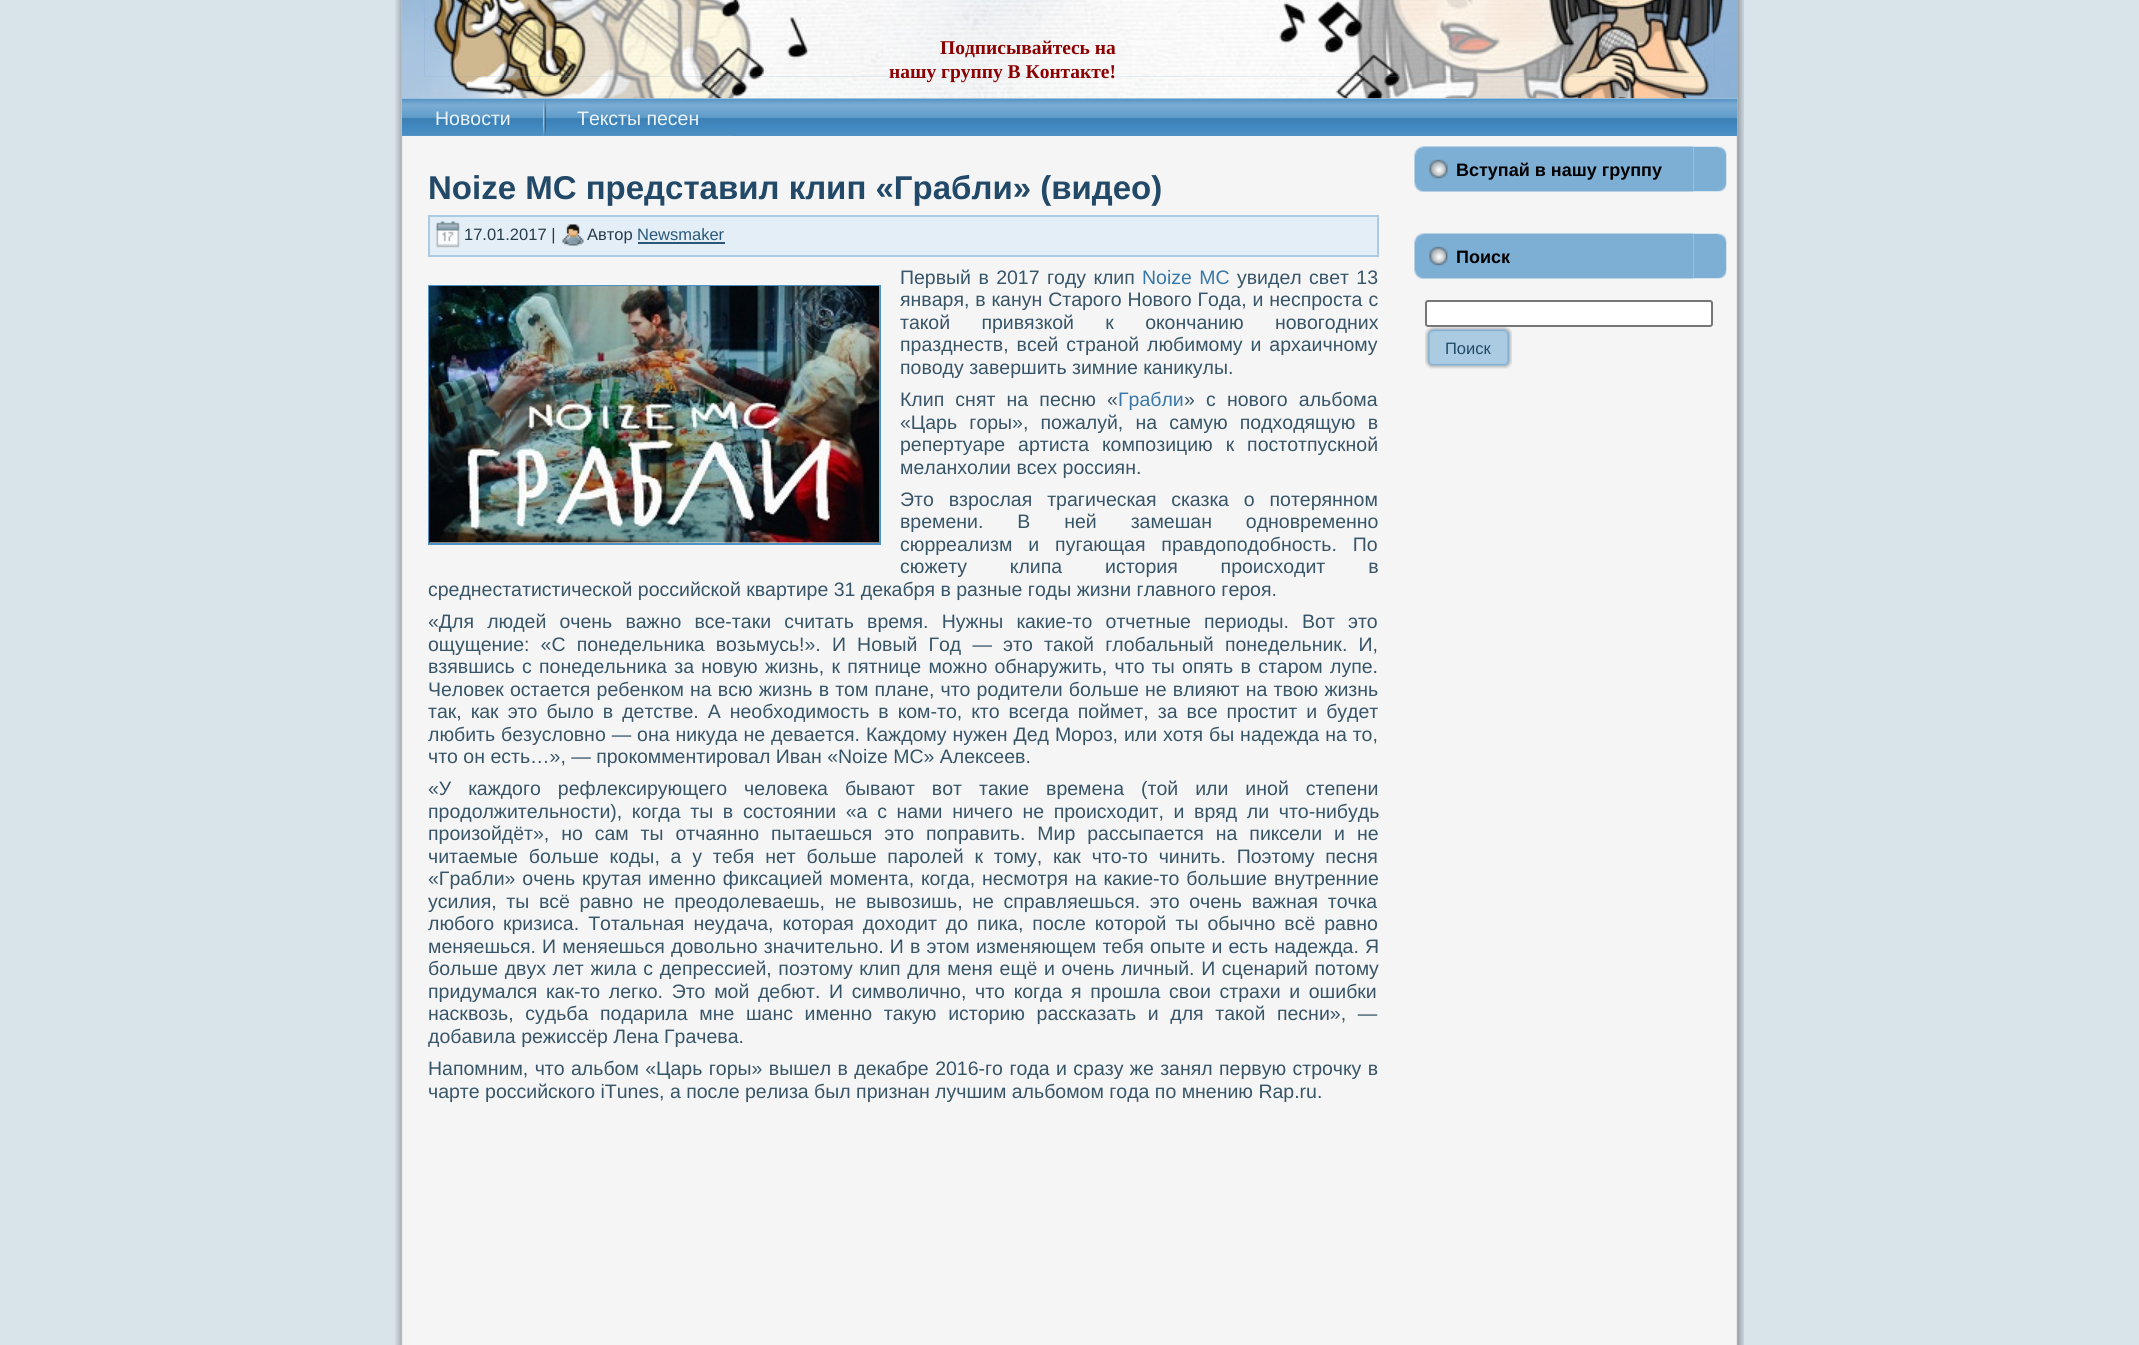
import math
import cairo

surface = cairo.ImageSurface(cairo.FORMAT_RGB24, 2139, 1345)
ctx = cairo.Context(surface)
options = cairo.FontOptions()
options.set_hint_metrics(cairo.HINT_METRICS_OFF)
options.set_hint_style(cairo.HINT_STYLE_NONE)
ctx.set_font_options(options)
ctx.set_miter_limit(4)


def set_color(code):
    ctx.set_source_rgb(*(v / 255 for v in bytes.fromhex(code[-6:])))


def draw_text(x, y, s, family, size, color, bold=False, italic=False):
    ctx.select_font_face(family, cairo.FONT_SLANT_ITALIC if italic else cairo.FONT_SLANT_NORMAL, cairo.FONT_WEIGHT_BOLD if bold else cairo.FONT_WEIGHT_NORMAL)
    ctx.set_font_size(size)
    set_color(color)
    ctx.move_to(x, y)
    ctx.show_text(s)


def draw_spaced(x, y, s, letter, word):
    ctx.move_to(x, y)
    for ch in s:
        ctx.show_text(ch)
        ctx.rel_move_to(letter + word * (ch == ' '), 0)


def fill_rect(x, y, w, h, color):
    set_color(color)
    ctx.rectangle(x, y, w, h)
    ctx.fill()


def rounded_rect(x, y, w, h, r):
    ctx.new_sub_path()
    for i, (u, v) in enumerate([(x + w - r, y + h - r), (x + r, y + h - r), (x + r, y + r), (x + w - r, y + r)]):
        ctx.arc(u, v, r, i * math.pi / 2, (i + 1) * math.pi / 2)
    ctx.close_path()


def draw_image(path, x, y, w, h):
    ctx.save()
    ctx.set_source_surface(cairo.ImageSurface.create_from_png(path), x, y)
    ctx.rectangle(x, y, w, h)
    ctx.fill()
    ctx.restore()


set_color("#d8e3ea")
ctx.paint()
draw_image("assets/img1.png", 395, 0, 52, 1345)
draw_image("assets/img13.png", 1692, 0, 52, 1345)
fill_rect(447, 95, 1245, 1250, "#f5f5f5")
draw_image("assets/img2.png", 402, 0, 1335, 99)
draw_image("assets/img3.png", 424, 0, 1291, 76)
draw_text(940, 54, "Подписывайтесь на", "Liberation Serif", 19.5, "#8b0000", bold=True)
draw_text(889, 78, "нашу группу В Контакте!", "Liberation Serif", 19.5, "#8b0000", bold=True)
draw_image("assets/img4.png", 402, 98, 1335, 38)
draw_text(435, 125, "Новости", "Liberation Sans", 19.5, "#ecf3f9")
fill_rect(402, 135, 141, 1, "#5495c5")
draw_image("assets/img5.png", 543, 100, 3, 36)
draw_text(577, 125, "Тексты песен", "Liberation Sans", 19.5, "#ecf3f9")
ctx.set_source_rgba(0.518, 0.71, 0.839, 0.12)
ctx.rectangle(543, 135, 189, 1)
ctx.fill()
draw_text(428, 199, "Noize MC представил клип «Грабли» (видео)", "Liberation Sans", 33, "#224967", bold=True)
set_color("#e4eef6")
ctx.rectangle(429, 216, 949, 40)
ctx.fill_preserve()
set_color("#abcbe3")
ctx.stroke()
draw_image("assets/img6.png", 436, 221, 24, 27)
draw_text(464, 240, "17.01.2017 |", "Liberation Sans", 16.5, "#273c49")
draw_image("assets/img7.png", 562, 224, 22, 22)
draw_text(587, 240, "Автор", "Liberation Sans", 16.5, "#273c49")
draw_text(637, 240, "Newsmaker", "Liberation Sans", 16.5, "#29577a")
fill_rect(638, 242, 87, 2, "#29577a")
ctx.set_font_size(19.5)
set_color("#375567")
draw_spaced(900, 284, "Первый в 2017 году клип", 0, 2)
set_color("#3878a8")
draw_spaced(1142, 284, "Noize MC", 0, 2)
set_color("#375567")
draw_spaced(1237, 284, "увидел свет 13", 0, 2)
ctx.rectangle(429, 286, 451, 258)
set_color("#4f92c4")
ctx.stroke()
draw_image("assets/img8.png", 429, 286, 450, 257)
set_color("#375567")
draw_spaced(900, 306, "января, в канун Старого Нового Года, и неспроста с", 0, 0.5)
draw_spaced(900, 329, "такой привязкой к окончанию новогодних", 0, 26)
draw_spaced(900, 351, "празднеств, всей страной любимому и архаичному", 0, 2.5)
draw_text(900, 374, "поводу завершить зимние каникулы.", "Liberation Sans", 19.5, "#375567")
draw_spaced(900, 406, "Клип снят на песню «", 0, 5.75)
draw_text(1118, 406, "Грабли", "Liberation Sans", 19.5, "#3878a8")
set_color("#375567")
draw_spaced(1184, 406, "» с нового альбома", 0, 5.75)
draw_spaced(900, 429, "«Царь горы», пожалуй, на самую подходящую в", 0, 6.75)
draw_spaced(900, 451, "репертуаре артиста композицию к постотпускной", 0, 7.5)
draw_text(900, 474, "меланхолии всех россиян.", "Liberation Sans", 19.5, "#375567")
draw_spaced(900, 506, "Это взрослая трагическая сказка о потерянном", 0, 9.5)
draw_spaced(900, 528, "времени. В ней замешан одновременно", 0, 28.5)
draw_spaced(900, 551, "сюрреализм и пугающая правдоподобность. По", 0, 10.5)
draw_spaced(900, 573, "сюжету клипа история происходит в", 0, 37.5)
draw_text(428, 596, "среднестатистической российской квартире 31 декабря в разные годы жизни главного героя.", "Liberation Sans", 19.5, "#375567")
draw_spaced(428, 628, "«Для людей очень важно все-таки считать время. Нужны какие-то отчетные периоды. Вот это", 0, 7.75)
draw_spaced(428, 651, "ощущение: «С понедельника возьмусь!». И Новый Год — это такой глобальный понедельник. И,", 0, 5.75)
draw_spaced(428, 673, "взявшись с понедельника за новую жизнь, к пятнице можно обнаружить, что ты опять в старом лупе.", 0, 1.9)
draw_spaced(428, 696, "Человек остается ребенком на всю жизнь в том плане, что родители больше не влияют на твою жизнь", 0, 0.75)
draw_spaced(428, 718, "так, как это было в детстве. А необходимость в ком-то, кто всегда поймет, за все простит и будет", 0, 3.6)
draw_spaced(428, 741, "любить безусловно — она никуда не девается. Каждому нужен Дед Мороз, или хотя бы надежда на то,", 0, 0.5)
draw_text(428, 763, "что он есть…», — прокомментировал Иван «Noize MC» Алексеев.", "Liberation Sans", 19.5, "#375567")
draw_spaced(428, 795, "«У каждого рефлексирующего человека бывают вот такие времена (той или иной степени", 0, 11.6)
draw_spaced(428, 818, "продолжительности), когда ты в состоянии «а с нами ничего не происходит, и вряд ли что-нибудь", 0, 4.25)
draw_spaced(428, 840, "произойдёт», но сам ты отчаянно пытаешься это поправить. Мир рассыпается на пиксели и не", 0, 6.5)
draw_spaced(428, 863, "читаемые больше коды, а у тебя нет больше паролей к тому, как что-то чинить. Поэтому песня", 0, 5.4)
draw_spaced(428, 885, "«Грабли» очень крутая именно фиксацией момента, когда, несмотря на какие-то большие внутренние", 0, 1.5)
draw_spaced(428, 908, "усилия, ты всё равно не преодолеваешь, не вывозишь, не справляешься. это очень важная точка", 0, 4.25)
draw_spaced(428, 930, "любого кризиса. Тотальная неудача, которая доходит до пика, после которой ты обычно всё равно", 0, 3.6)
draw_spaced(428, 953, "меняешься. И меняешься довольно значительно. И в этом изменяющем тебя опыте и есть надежда. Я", 0, 0.75)
draw_spaced(428, 975, "больше двух лет жила с депрессией, поэтому клип для меня ещё и очень личный. И сценарий потому", 0, 1.25)
draw_spaced(428, 998, "придумался как-то легко. Это мой дебют. И символично, что когда я прошла свои страхи и ошибки", 0, 3.25)
draw_spaced(428, 1020, "насквозь, судьба подарила мне шанс именно такую историю рассказать и для такой песни», —", 0, 6.25)
draw_text(428, 1043, "добавила режиссёр Лена Грачева.", "Liberation Sans", 19.5, "#375567")
draw_spaced(428, 1075, "Напомним, что альбом «Царь горы» вышел в декабре 2016-го года и сразу же занял первую строчку в", 0, 1)
draw_text(428, 1098, "чарте российского iTunes, а после релиза был признан лучшим альбомом года по мнению Rap.ru.", "Liberation Sans", 19.5, "#375567")
draw_image("assets/img9.png", 1414, 146, 280, 46)
draw_image("assets/img10.png", 1693, 146, 34, 46)
draw_text(1456, 176, "Вступай в нашу группу", "Liberation Sans", 18, "#000000", bold=True)
draw_image("assets/img9.png", 1414, 233, 280, 46)
draw_image("assets/img10.png", 1693, 233, 34, 46)
draw_text(1456, 263, "Поиск", "Liberation Sans", 18, "#000000", bold=True)
set_color("#ffffff")
rounded_rect(1426, 301, 286, 25, 2)
ctx.fill_preserve()
set_color("#767676")
ctx.stroke()
draw_image("assets/img11.png", 1425, 327, 75, 42)
draw_image("assets/img12.png", 1500, 327, 12, 42)
draw_text(1445, 354, "Поиск", "Liberation Sans", 16.5, "#224967")
surface.write_to_png("output.png")
